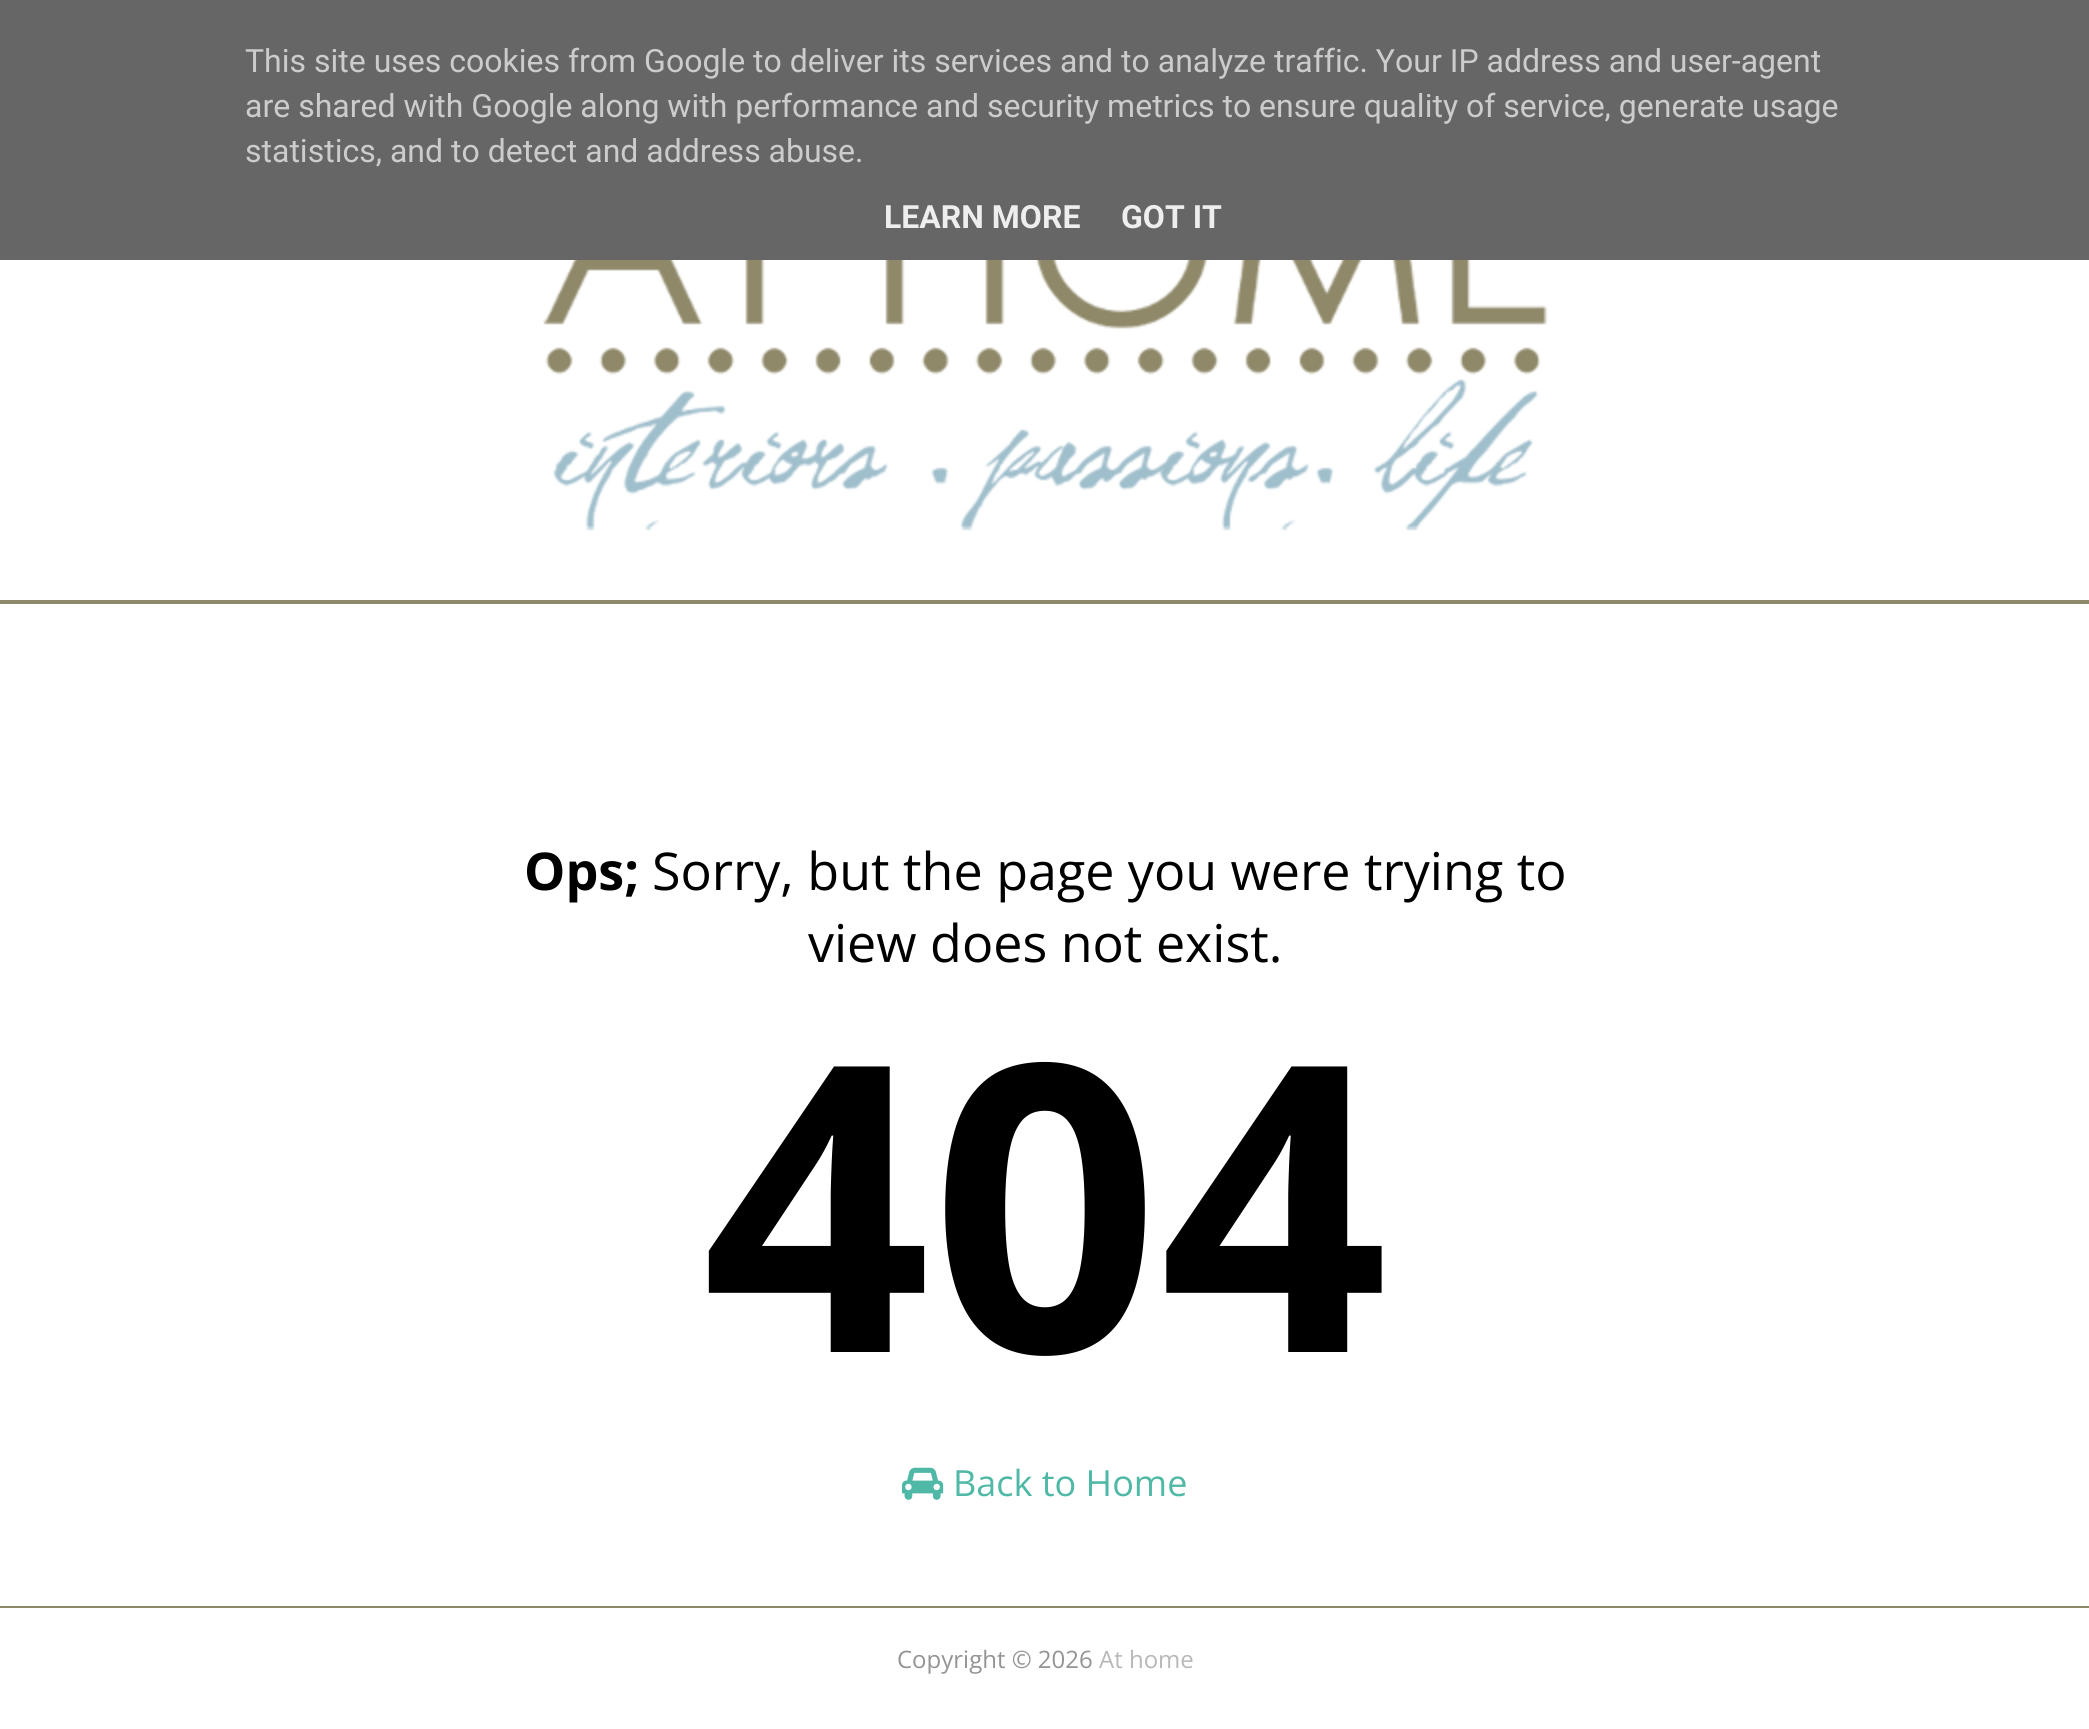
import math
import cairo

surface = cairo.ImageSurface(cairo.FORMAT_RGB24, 2089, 1729)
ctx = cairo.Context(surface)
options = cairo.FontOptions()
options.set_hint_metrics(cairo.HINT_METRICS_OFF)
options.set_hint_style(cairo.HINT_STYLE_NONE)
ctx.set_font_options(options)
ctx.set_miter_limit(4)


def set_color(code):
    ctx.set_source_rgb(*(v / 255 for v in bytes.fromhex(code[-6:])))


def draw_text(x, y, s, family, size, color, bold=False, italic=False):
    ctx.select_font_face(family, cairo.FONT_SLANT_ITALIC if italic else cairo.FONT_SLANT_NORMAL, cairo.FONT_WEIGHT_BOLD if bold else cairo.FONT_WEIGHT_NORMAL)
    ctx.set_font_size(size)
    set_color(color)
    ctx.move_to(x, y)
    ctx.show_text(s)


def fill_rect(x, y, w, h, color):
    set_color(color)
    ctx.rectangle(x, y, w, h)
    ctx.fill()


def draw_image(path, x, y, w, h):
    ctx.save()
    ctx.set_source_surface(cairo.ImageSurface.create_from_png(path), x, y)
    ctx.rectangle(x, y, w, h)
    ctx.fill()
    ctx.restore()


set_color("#ffffff")
ctx.paint()
fill_rect(0, 0, 2089, 260, "#666666")
draw_text(245, 72, "This site uses cookies from Google to deliver its services and to analyze traffic. Your IP address and user-agent", "Roboto", 32, "#cccccc")
draw_text(245, 117, "are shared with Google along with performance and security metrics to ensure quality of service, generate usage", "Roboto", 32, "#cccccc")
draw_text(245, 162, "statistics, and to detect and address abuse.", "Roboto", 32, "#cccccc")
draw_text(884, 228, "LEARN MORE", "Roboto", 32, "#eeeeee", bold=True)
draw_text(1121, 228, "GOT IT", "Roboto", 32, "#eeeeee", bold=True)
draw_image("assets/img1.png", 543, 260, 1005, 271)
fill_rect(0, 600, 2089, 4, "#8e886a")
draw_text(524, 890, "Ops;", "Open Sans", 52, "#000000", bold=True)
draw_text(652, 890, "Sorry, but the page you were trying to", "Open Sans", 52, "#000000")
draw_text(808, 962, "view does not exist.", "Open Sans", 52, "#000000")
draw_text(702, 1352, "404", "Open Sans", 400, "#000000", bold=True)
draw_image("assets/img2.png", 902, 1467, 42, 33)
draw_text(953, 1496, "Back to Home", "Open Sans", 36, "#4fb8a6")
fill_rect(0, 1606, 2089, 2, "#8e886a")
draw_text(897, 1668, "Copyright © 2026", "Open Sans", 24, "#949494")
draw_text(1099, 1668, "At home", "Open Sans", 24, "#b8b8b8")
surface.write_to_png("output.png")
